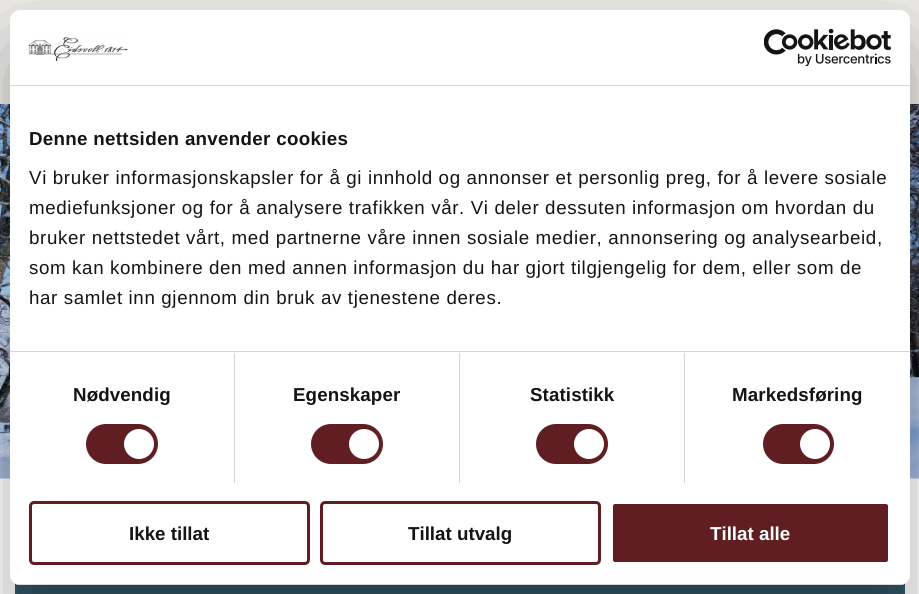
import math
import cairo

surface = cairo.ImageSurface(cairo.FORMAT_RGB24, 919, 594)
ctx = cairo.Context(surface)
options = cairo.FontOptions()
options.set_hint_metrics(cairo.HINT_METRICS_OFF)
options.set_hint_style(cairo.HINT_STYLE_NONE)
ctx.set_font_options(options)
ctx.set_miter_limit(4)


def set_color(code):
    ctx.set_source_rgb(*(v / 255 for v in bytes.fromhex(code[-6:])))


def draw_text(x, y, s, family, size, color, bold=False, italic=False):
    ctx.select_font_face(family, cairo.FONT_SLANT_ITALIC if italic else cairo.FONT_SLANT_NORMAL, cairo.FONT_WEIGHT_BOLD if bold else cairo.FONT_WEIGHT_NORMAL)
    ctx.set_font_size(size)
    set_color(color)
    ctx.move_to(x, y)
    ctx.show_text(s)


def draw_spaced(x, y, s, letter, word):
    ctx.move_to(x, y)
    for ch in s:
        ctx.show_text(ch)
        ctx.rel_move_to(letter + word * (ch == ' '), 0)


def fill_rect(x, y, w, h, color):
    set_color(color)
    ctx.rectangle(x, y, w, h)
    ctx.fill()


def rounded_rect(x, y, w, h, r):
    ctx.new_sub_path()
    for i, (u, v) in enumerate([(x + w - r, y + h - r), (x + r, y + h - r), (x + r, y + r), (x + w - r, y + r)]):
        ctx.arc(u, v, r, i * math.pi / 2, (i + 1) * math.pi / 2)
    ctx.close_path()


def draw_shadow(x, y, w, h, r, blur, alpha):
    ctx.push_group_with_content(cairo.CONTENT_ALPHA)
    ctx.set_operator(cairo.OPERATOR_SOURCE)
    for i in range(15, -16, -2):
        e = blur * i / 6
        if min(w, h) + 2 * e > 0:
            ctx.set_source_rgba(0, 0, 0, alpha * math.erfc((i - 1) / 8.5) / 2)
            rounded_rect(x - e, y - e, w + 2 * e, h + 2 * e, max(0, min(r + e + blur * .6, min(w, h) / 2 + e)))
            ctx.fill()
    ctx.mask(ctx.pop_group())


def draw_image(path, x, y, w, h):
    ctx.save()
    ctx.set_source_surface(cairo.ImageSurface.create_from_png(path), x, y)
    ctx.rectangle(x, y, w, h)
    ctx.fill()
    ctx.restore()


set_color("#ffffff")
ctx.paint()
fill_rect(0, 0, 919, 104, "#edebe8")
draw_image("assets/img1.png", 0, 104, 919, 375)
fill_rect(15, 583, 890, 11, "#33576b")
set_color("#000000")
draw_shadow(10, 50, 900, 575, 10, 42.5, 0.3)
set_color("#ffffff")
rounded_rect(10, 10, 900, 575, 10)
ctx.fill()
fill_rect(10, 85, 900, 1, "#d6d6d6")
draw_image("assets/img2.png", 28, 37, 100, 25)
draw_image("assets/img3.png", 764, 29, 127, 37)
fill_rect(10, 351, 900, 1, "#d6d6d6")
ctx.select_font_face("Liberation Sans", cairo.FONT_SLANT_NORMAL, cairo.FONT_WEIGHT_BOLD)
ctx.set_font_size(18.75)
set_color("#141414")
draw_spaced(29, 145, "Denne nettsiden anvender cookies", 0.3, 0)
ctx.select_font_face("Liberation Sans")
draw_spaced(29, 184, "Vi bruker informasjonskapsler for å gi innhold og annonser et personlig preg, for å levere sosiale", 0.62, 0)
draw_spaced(29, 214, "mediefunksjoner og for å analysere trafikken vår. Vi deler dessuten informasjon om hvordan du", 0.62, 0)
draw_spaced(29, 244, "bruker nettstedet vårt, med partnerne våre innen sosiale medier, annonsering og analysearbeid,", 0.62, 0)
draw_spaced(29, 274, "som kan kombinere den med annen informasjon du har gjort tilgjengelig for dem, eller som de", 0.62, 0)
draw_spaced(29, 304, "har samlet inn gjennom din bruk av tjenestene deres.", 0.62, 0)
fill_rect(234, 353, 1, 130, "#d6d6d6")
ctx.select_font_face("Liberation Sans", cairo.FONT_SLANT_NORMAL, cairo.FONT_WEIGHT_BOLD)
set_color("#141414")
draw_spaced(73, 401, "Nødvendig", 0.1, 0)
set_color("#611e22")
rounded_rect(86, 424, 72, 40, 20)
ctx.fill()
set_color("#ffffff")
ctx.arc(139, 444, 15, 0, 2 * math.pi)
ctx.fill()
fill_rect(459, 353, 1, 130, "#d6d6d6")
set_color("#141414")
draw_spaced(293, 401, "Egenskaper", 0.1, 0)
set_color("#611e22")
rounded_rect(311, 424, 72, 40, 20)
ctx.fill()
set_color("#ffffff")
ctx.arc(364, 444, 15, 0, 2 * math.pi)
ctx.fill()
fill_rect(684, 353, 1, 130, "#d6d6d6")
set_color("#141414")
draw_spaced(530, 401, "Statistikk", 0.1, 0)
set_color("#611e22")
rounded_rect(536, 424, 72, 40, 20)
ctx.fill()
set_color("#ffffff")
ctx.arc(589, 444, 15, 0, 2 * math.pi)
ctx.fill()
set_color("#141414")
draw_spaced(732, 401, "Markedsføring", 0.1, 0)
set_color("#611e22")
rounded_rect(763, 424, 71, 40, 20)
ctx.fill()
set_color("#ffffff")
ctx.arc(815, 444, 15, 0, 2 * math.pi)
ctx.fill()
ctx.save()
rounded_rect(10, 10, 900, 575, 10)
ctx.clip()
fill_rect(10, 584, 900, 1, "#d6d6d6")
ctx.restore()
rounded_rect(30.5, 502.5, 278, 61, 3.5)
set_color("#611e22")
ctx.set_line_width(3)
ctx.stroke()
draw_text(129, 540, "Ikke tillat", "Liberation Sans", 18.75, "#141414", bold=True)
rounded_rect(321.5, 502.5, 278, 61, 3.5)
set_color("#611e22")
ctx.stroke()
draw_text(408, 540, "Tillat utvalg", "Liberation Sans", 18.75, "#141414", bold=True)
set_color("#611e22")
rounded_rect(611.5, 502.5, 278, 61, 3.5)
ctx.fill_preserve()
set_color("#ffffff")
ctx.stroke()
draw_text(710, 540, "Tillat alle", "Liberation Sans", 18.75, "#ffffff", bold=True)
surface.write_to_png("output.png")
